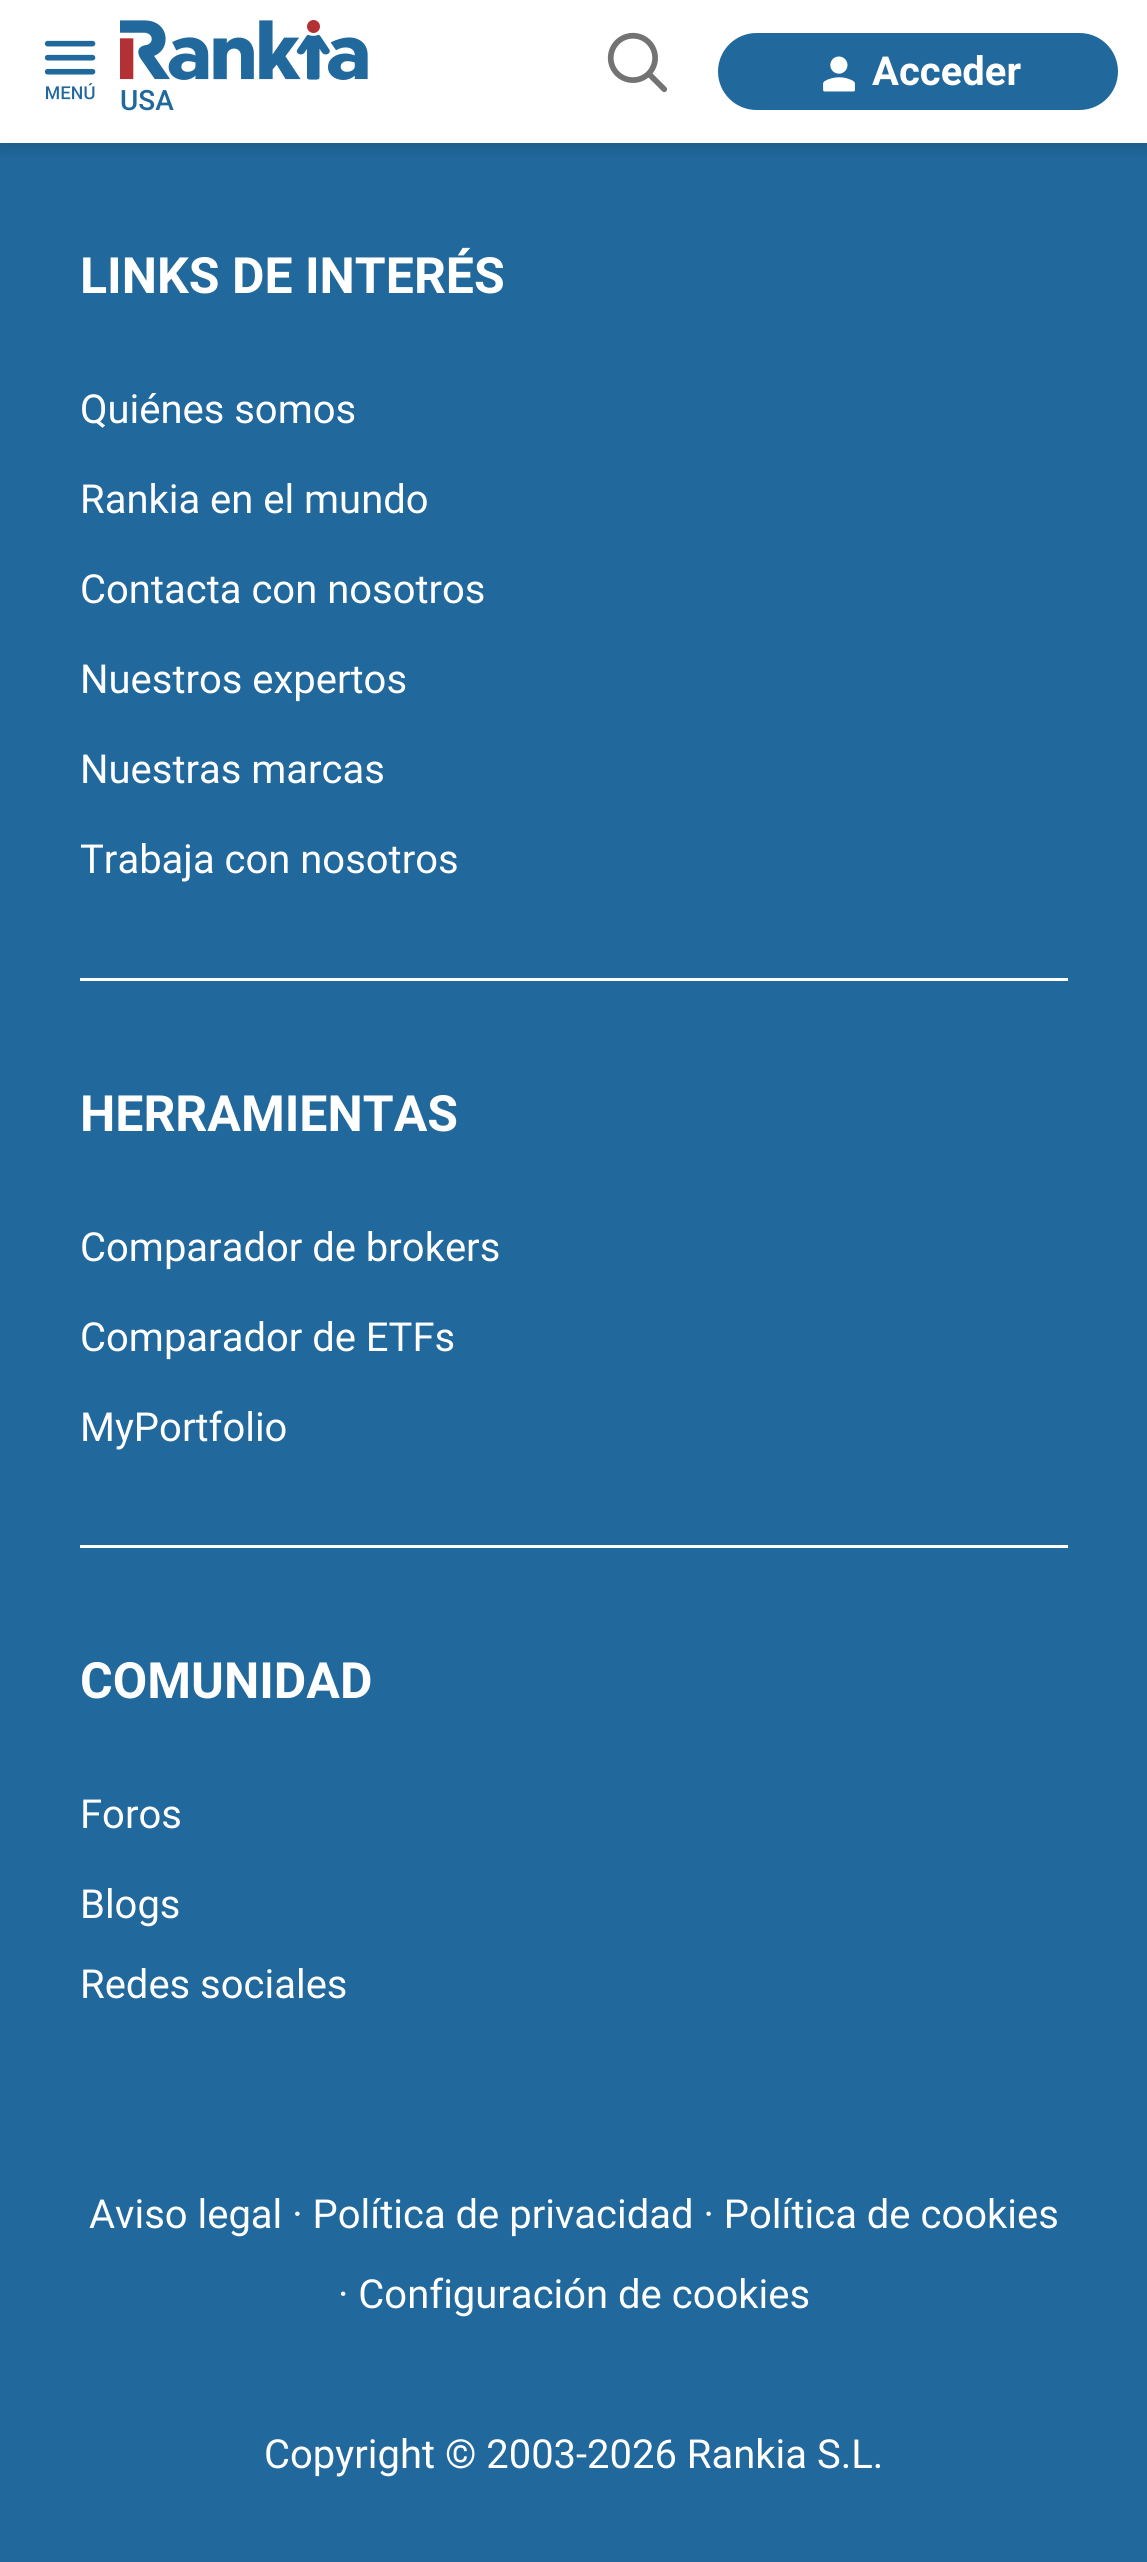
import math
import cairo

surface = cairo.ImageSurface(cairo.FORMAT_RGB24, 1147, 2562)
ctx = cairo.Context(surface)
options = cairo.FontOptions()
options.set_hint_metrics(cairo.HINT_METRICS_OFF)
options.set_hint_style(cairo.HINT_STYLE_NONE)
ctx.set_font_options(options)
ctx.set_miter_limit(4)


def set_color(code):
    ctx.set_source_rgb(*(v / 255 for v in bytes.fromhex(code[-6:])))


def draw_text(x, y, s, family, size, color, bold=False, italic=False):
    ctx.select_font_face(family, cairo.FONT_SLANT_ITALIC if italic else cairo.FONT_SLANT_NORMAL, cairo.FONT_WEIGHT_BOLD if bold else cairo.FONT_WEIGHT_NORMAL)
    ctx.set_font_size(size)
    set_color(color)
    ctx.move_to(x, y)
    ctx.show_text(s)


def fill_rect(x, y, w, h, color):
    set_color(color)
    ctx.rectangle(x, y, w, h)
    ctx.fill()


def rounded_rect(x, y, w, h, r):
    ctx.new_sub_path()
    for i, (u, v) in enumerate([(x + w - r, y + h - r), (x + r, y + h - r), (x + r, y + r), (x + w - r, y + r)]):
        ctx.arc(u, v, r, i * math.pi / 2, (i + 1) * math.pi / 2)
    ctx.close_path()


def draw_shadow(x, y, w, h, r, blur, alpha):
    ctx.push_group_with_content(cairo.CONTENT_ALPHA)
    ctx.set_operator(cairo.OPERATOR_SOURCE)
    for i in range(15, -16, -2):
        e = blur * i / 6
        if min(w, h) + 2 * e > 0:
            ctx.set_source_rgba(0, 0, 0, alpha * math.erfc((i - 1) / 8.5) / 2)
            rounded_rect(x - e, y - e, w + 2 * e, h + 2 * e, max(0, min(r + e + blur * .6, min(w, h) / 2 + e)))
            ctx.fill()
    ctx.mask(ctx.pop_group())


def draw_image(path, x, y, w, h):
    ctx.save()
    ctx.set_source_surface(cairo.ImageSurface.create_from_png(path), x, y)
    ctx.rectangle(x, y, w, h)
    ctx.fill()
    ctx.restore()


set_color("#21689d")
ctx.paint()
set_color("#000000")
draw_shadow(-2, 3, 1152, 147, 0, 6, 0.12)
fill_rect(0, 0, 1147, 143, "#ffffff")
draw_image("assets/img1.png", 607, 32, 61, 61)
set_color("#21689d")
rounded_rect(720.5, 35.5, 395, 72, 36)
ctx.fill_preserve()
ctx.set_line_width(5)
ctx.stroke()
draw_image("assets/img2.png", 823, 56, 32, 36)
draw_text(872, 85, "Acceder", "Roboto", 40, "#ffffff", bold=True)
draw_image("assets/img3.png", 44, 40, 52, 60)
draw_image("assets/img4.png", 120, 20, 248, 60)
draw_text(120, 110, "USA", "Roboto Medium", 28, "#21689d")
fill_rect(80, 978, 988, 3, "#ffffff")
draw_text(80, 293, "LINKS DE INTERÉS", "Roboto", 50, "#ffffff", bold=True)
draw_text(80, 423, "Quiénes somos", "Roboto", 40, "#ffffff")
draw_text(80, 513, "Rankia en el mundo", "Roboto", 40, "#ffffff")
draw_text(80, 603, "Contacta con nosotros", "Roboto", 40, "#ffffff")
draw_text(80, 693, "Nuestros expertos", "Roboto", 40, "#ffffff")
draw_text(80, 783, "Nuestras marcas", "Roboto", 40, "#ffffff")
draw_text(80, 873, "Trabaja con nosotros", "Roboto", 40, "#ffffff")
fill_rect(80, 1545, 988, 3, "#ffffff")
draw_text(80, 1131, "HERRAMIENTAS", "Roboto", 50, "#ffffff", bold=True)
draw_text(80, 1261, "Comparador de brokers", "Roboto", 40, "#ffffff")
draw_text(80, 1351, "Comparador de ETFs", "Roboto", 40, "#ffffff")
draw_text(80, 1441, "MyPortfolio", "Roboto", 40, "#ffffff")
draw_text(80, 1698, "COMUNIDAD", "Roboto", 50, "#ffffff", bold=True)
draw_text(80, 1828, "Foros", "Roboto", 40, "#ffffff")
draw_text(80, 1918, "Blogs", "Roboto", 40, "#ffffff")
draw_text(80, 1998, "Redes sociales", "Roboto", 40, "#ffffff")
draw_text(89, 2228, "Aviso legal · Política de privacidad · Política de cookies", "Roboto", 40, "#ffffff")
draw_text(338, 2308, "· Configuración de cookies", "Roboto", 40, "#ffffff")
draw_text(264, 2468, "Copyright © 2003-2026 Rankia S.L.", "Roboto", 40, "#ffffff")
surface.write_to_png("output.png")
